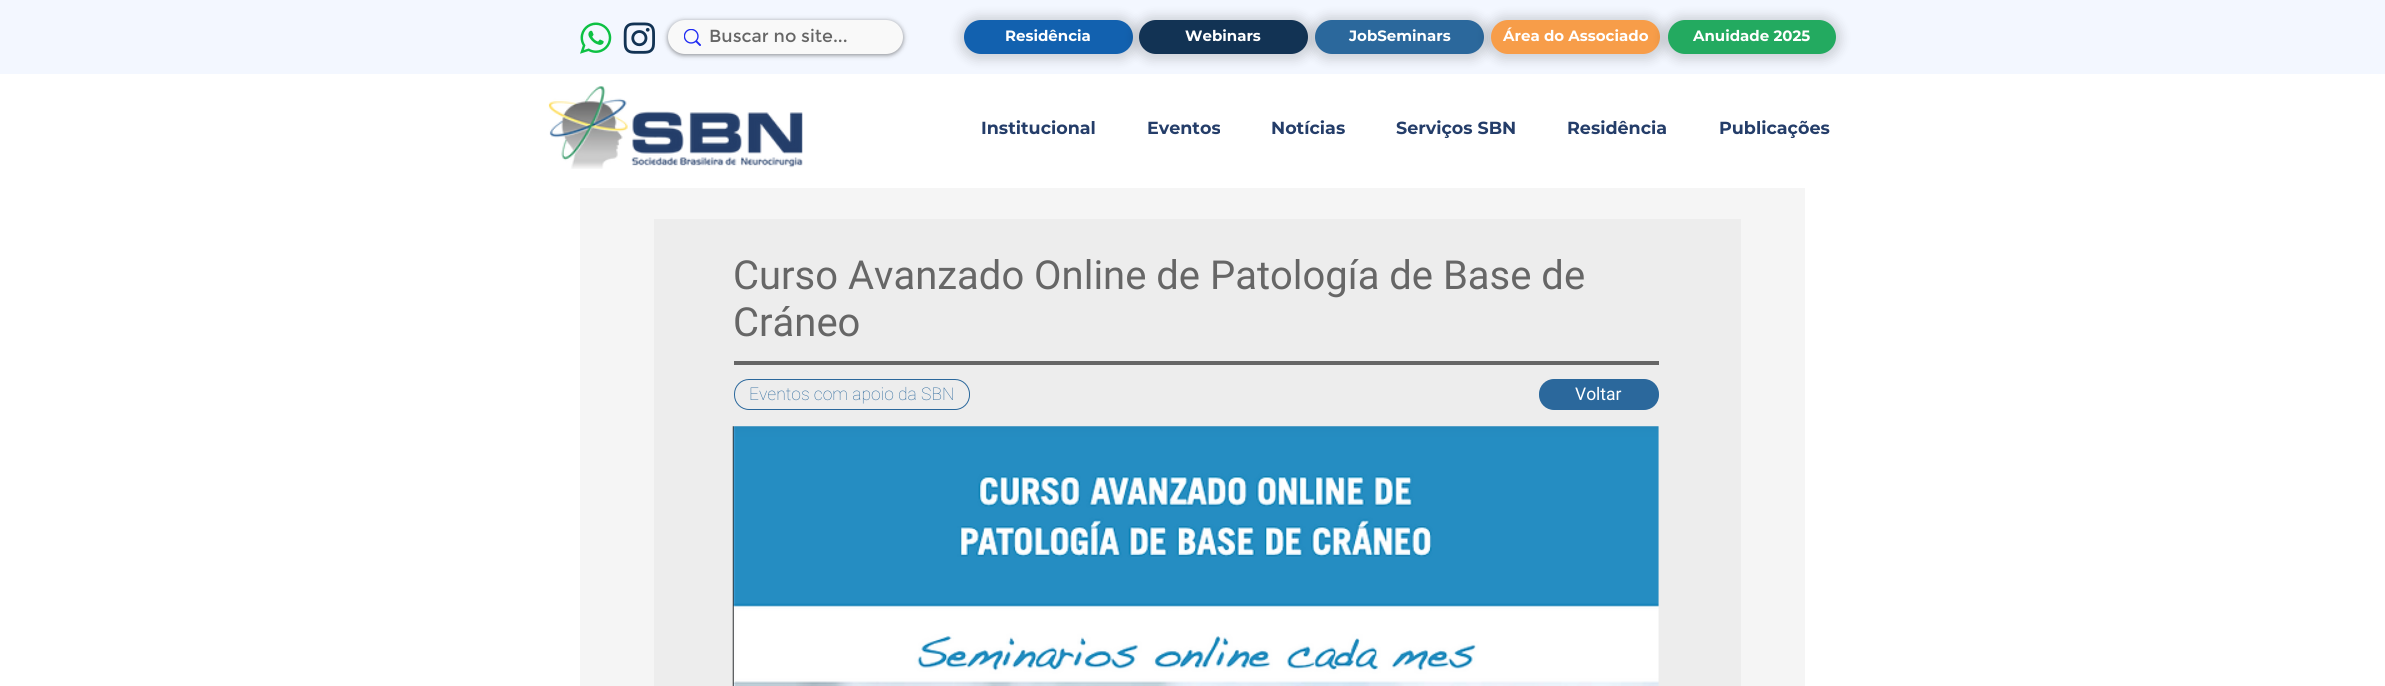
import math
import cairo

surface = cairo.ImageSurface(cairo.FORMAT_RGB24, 2385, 686)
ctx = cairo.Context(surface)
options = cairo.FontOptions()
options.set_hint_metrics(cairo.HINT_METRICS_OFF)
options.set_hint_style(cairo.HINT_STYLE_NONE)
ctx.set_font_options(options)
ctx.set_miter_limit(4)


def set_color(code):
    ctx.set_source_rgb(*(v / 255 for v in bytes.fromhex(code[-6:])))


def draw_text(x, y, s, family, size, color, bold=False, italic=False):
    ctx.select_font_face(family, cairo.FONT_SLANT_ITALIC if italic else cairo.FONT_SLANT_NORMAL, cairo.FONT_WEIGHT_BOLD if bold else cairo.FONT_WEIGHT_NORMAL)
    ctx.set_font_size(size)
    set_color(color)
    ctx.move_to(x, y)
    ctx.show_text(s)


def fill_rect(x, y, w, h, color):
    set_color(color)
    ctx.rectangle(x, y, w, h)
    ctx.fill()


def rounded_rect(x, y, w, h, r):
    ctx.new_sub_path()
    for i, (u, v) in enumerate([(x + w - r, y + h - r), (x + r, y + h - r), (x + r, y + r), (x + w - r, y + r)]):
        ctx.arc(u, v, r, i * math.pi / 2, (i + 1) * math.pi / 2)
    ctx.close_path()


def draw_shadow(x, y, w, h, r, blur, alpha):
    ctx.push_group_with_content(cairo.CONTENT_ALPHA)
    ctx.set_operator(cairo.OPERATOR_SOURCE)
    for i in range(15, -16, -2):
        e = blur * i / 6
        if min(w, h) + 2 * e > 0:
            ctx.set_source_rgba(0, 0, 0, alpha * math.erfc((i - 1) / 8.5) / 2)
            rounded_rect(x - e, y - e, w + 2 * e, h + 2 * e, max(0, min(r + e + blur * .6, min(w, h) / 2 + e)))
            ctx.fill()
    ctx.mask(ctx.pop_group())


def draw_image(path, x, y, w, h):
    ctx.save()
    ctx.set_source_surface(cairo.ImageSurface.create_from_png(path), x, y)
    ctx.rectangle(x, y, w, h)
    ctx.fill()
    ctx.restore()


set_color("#ffffff")
ctx.paint()
fill_rect(0, 0, 2385, 74, "#f3f7ff")
draw_image("assets/img1.png", 580, 22, 32, 32)
draw_image("assets/img2.png", 623, 22, 32, 32)
set_color("#000000")
draw_shadow(668, 21, 235, 34, 17, 2.5, 0.46)
set_color("#f9f9f9")
rounded_rect(668, 20, 235, 34, 17)
ctx.fill()
draw_image("assets/img3.png", 684, 29, 17, 17)
draw_text(709, 42, "Buscar no site...", "Montserrat", 17.5, "#666666")
set_color("#000000")
draw_shadow(959, 16, 179, 44, 22, 5.5, 0.15)
set_color("#1261af")
rounded_rect(964, 20, 169, 34, 17)
ctx.fill()
draw_text(1005, 41, "Residência", "Montserrat", 15, "#ffffff", bold=True)
set_color("#000000")
draw_shadow(1134, 16, 179, 44, 22, 5.5, 0.15)
set_color("#123354")
rounded_rect(1139, 20, 169, 34, 17)
ctx.fill()
draw_text(1185, 41, "Webinars", "Montserrat", 15, "#ffffff", bold=True)
set_color("#000000")
draw_shadow(1310, 16, 179, 44, 22, 5.5, 0.15)
set_color("#2b689c")
rounded_rect(1315, 20, 169, 34, 17)
ctx.fill()
draw_text(1349, 41, "JobSeminars", "Montserrat", 15, "#ffffff", bold=True)
set_color("#000000")
draw_shadow(1486, 16, 179, 44, 22, 5.5, 0.15)
set_color("#f79d49")
rounded_rect(1491, 20, 169, 34, 17)
ctx.fill()
draw_text(1503, 41, "Área do Associado", "Montserrat", 15, "#ffffff", bold=True)
set_color("#000000")
draw_shadow(1663, 16, 178, 44, 22, 5.5, 0.15)
set_color("#23aa60")
rounded_rect(1668, 20, 168, 34, 17)
ctx.fill()
draw_text(1693, 41, "Anuidade 2025", "Montserrat", 15, "#ffffff", bold=True)
draw_image("assets/img4.png", 548, 86, 255, 83)
draw_text(981, 134, "Institucional", "Montserrat", 17.5, "#243d69", bold=True)
draw_text(1147, 134, "Eventos", "Montserrat", 17.5, "#243d69", bold=True)
draw_text(1271, 134, "Notícias", "Montserrat", 17.5, "#243d69", bold=True)
draw_text(1396, 134, "Serviços SBN", "Montserrat", 17.5, "#243d69", bold=True)
draw_text(1567, 134, "Residência", "Montserrat", 17.5, "#243d69", bold=True)
draw_text(1719, 134, "Publicações", "Montserrat", 17.5, "#243d69", bold=True)
fill_rect(580, 188, 1225, 498, "#f5f5f5")
fill_rect(654, 219, 1087, 467, "#ededed")
draw_text(733, 289, "Curso Avanzado Online de Patología de Base de", "Roboto", 40, "#666666")
draw_text(733, 336, "Cráneo", "Roboto", 40, "#666666")
fill_rect(734, 361, 925, 4, "#666666")
rounded_rect(734.5, 379.5, 235, 30, 14.5)
set_color("#2b689c")
ctx.set_line_width(1)
ctx.stroke()
draw_text(749, 400, "Eventos com apoio da SBN", "Roboto Thin", 17.5, "#2b689c")
rounded_rect(1539, 379, 120, 31, 15)
ctx.fill()
draw_text(1575, 400, "Voltar", "Roboto", 17.5, "#ffffff")
draw_image("assets/img5.png", 732, 426, 927, 260)
surface.write_to_png("output.png")
